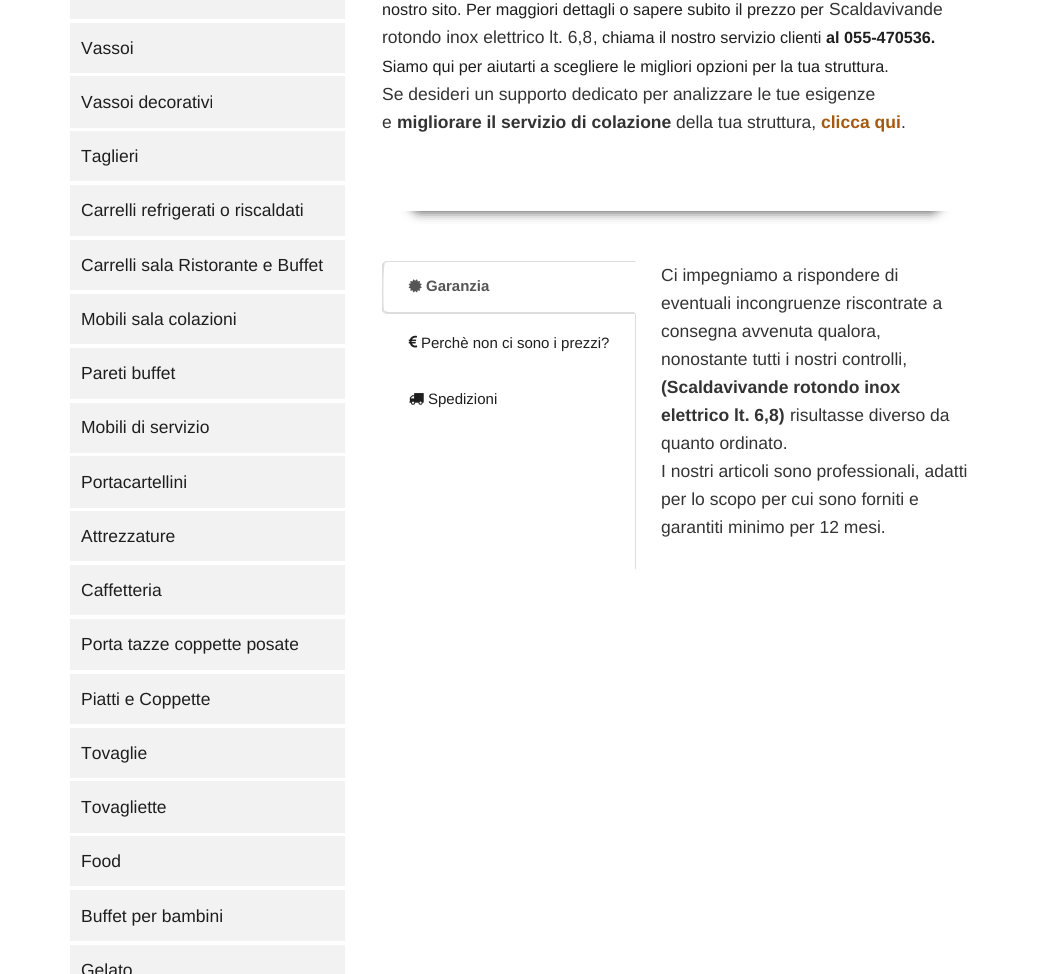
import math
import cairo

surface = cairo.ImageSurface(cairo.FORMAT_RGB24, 1040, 974)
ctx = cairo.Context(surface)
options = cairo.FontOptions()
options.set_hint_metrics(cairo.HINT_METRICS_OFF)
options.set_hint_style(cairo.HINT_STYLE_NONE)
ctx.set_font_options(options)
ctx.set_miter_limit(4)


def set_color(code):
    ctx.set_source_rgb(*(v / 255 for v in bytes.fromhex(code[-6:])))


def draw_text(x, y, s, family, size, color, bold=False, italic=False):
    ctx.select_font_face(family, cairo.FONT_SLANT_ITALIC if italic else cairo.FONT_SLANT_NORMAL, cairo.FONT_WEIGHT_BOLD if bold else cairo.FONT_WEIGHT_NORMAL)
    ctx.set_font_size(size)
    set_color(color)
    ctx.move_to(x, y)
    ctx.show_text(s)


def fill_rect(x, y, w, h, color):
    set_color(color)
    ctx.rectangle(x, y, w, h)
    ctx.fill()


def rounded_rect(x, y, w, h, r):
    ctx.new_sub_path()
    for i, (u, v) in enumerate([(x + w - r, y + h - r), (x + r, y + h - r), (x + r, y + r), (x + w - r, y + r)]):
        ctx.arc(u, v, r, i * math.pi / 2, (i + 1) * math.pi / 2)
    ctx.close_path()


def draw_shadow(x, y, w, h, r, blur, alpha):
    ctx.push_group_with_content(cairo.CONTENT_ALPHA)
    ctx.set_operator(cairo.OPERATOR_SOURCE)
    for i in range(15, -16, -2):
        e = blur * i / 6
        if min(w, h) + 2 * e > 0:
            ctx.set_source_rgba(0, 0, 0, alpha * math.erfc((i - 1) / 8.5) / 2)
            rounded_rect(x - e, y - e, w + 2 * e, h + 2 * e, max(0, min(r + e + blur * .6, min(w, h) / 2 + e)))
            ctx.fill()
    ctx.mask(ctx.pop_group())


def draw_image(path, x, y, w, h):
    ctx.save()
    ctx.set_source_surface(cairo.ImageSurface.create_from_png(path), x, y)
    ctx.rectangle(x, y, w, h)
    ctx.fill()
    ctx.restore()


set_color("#ffffff")
ctx.paint()
fill_rect(70, 0, 275, 19, "#f2f2f2")
fill_rect(70, 23, 275, 50, "#f2f2f2")
draw_text(81, 54, "Vassoi", "Liberation Sans", 17.5, "#1e1e1e")
fill_rect(70, 76, 275, 52, "#f2f2f2")
draw_text(81, 108, "Vassoi decorativi", "Liberation Sans", 17.5, "#1e1e1e")
fill_rect(70, 131, 275, 50, "#f2f2f2")
draw_text(81, 162, "Taglieri", "Liberation Sans", 17.5, "#1e1e1e")
fill_rect(70, 185, 275, 51, "#f2f2f2")
draw_text(81, 216, "Carrelli refrigerati o riscaldati", "Liberation Sans", 17.5, "#1e1e1e")
fill_rect(70, 240, 275, 50, "#f2f2f2")
draw_text(81, 271, "Carrelli sala Ristorante e Buffet", "Liberation Sans", 17.5, "#1e1e1e")
fill_rect(70, 294, 275, 50, "#f2f2f2")
draw_text(81, 325, "Mobili sala colazioni", "Liberation Sans", 17.5, "#1e1e1e")
fill_rect(70, 348, 275, 51, "#f2f2f2")
draw_text(81, 379, "Pareti buffet", "Liberation Sans", 17.5, "#1e1e1e")
fill_rect(70, 403, 275, 50, "#f2f2f2")
draw_text(81, 433, "Mobili di servizio", "Liberation Sans", 17.5, "#1e1e1e")
fill_rect(70, 456, 275, 52, "#f2f2f2")
draw_text(81, 488, "Portacartellini", "Liberation Sans", 17.5, "#1e1e1e")
fill_rect(70, 511, 275, 50, "#f2f2f2")
draw_text(81, 542, "Attrezzature", "Liberation Sans", 17.5, "#1e1e1e")
fill_rect(70, 565, 275, 50, "#f2f2f2")
draw_text(81, 596, "Caffetteria", "Liberation Sans", 17.5, "#1e1e1e")
fill_rect(70, 619, 275, 51, "#f2f2f2")
draw_text(81, 650, "Porta tazze coppette posate", "Liberation Sans", 17.5, "#1e1e1e")
fill_rect(70, 674, 275, 50, "#f2f2f2")
draw_text(81, 705, "Piatti e Coppette", "Liberation Sans", 17.5, "#1e1e1e")
fill_rect(70, 728, 275, 50, "#f2f2f2")
draw_text(81, 759, "Tovaglie", "Liberation Sans", 17.5, "#1e1e1e")
fill_rect(70, 781, 275, 52, "#f2f2f2")
draw_text(81, 813, "Tovagliette", "Liberation Sans", 17.5, "#1e1e1e")
fill_rect(70, 836, 275, 50, "#f2f2f2")
draw_text(81, 867, "Food", "Liberation Sans", 17.5, "#1e1e1e")
fill_rect(70, 890, 275, 51, "#f2f2f2")
draw_text(81, 922, "Buffet per bambini", "Liberation Sans", 17.5, "#1e1e1e")
fill_rect(70, 945, 275, 29, "#f2f2f2")
draw_text(81, 976, "Gelato", "Liberation Sans", 17.5, "#1e1e1e")
draw_text(382, 15, "nostro sito. Per maggiori dettagli o sapere subito il prezzo per", "Liberation Sans", 16.25, "#1e1e1e")
draw_text(829, 15, "Scaldavivande", "Liberation Sans", 17.5, "#333333")
draw_text(382, 43, "rotondo inox elettrico lt. 6,8", "Liberation Sans", 17.5, "#333333")
draw_text(593, 43, ", chiama il nostro servizio clienti", "Liberation Sans", 16.25, "#1e1e1e")
draw_text(826, 43, "al 055-470536.", "Liberation Sans", 16.25, "#1e1e1e", bold=True)
draw_text(382, 72, "Siamo qui per aiutarti a scegliere le migliori opzioni per la tua struttura.", "Liberation Sans", 16.25, "#1e1e1e")
draw_text(382, 100, "Se desideri un supporto dedicato per analizzare le tue esigenze", "Liberation Sans", 17.5, "#333333")
draw_text(382, 128, "e", "Liberation Sans", 17.5, "#333333")
draw_text(397, 128, "migliorare il servizio di colazione", "Liberation Sans", 17.5, "#333333", bold=True)
draw_text(676, 128, "della tua struttura,", "Liberation Sans", 17.5, "#333333")
draw_text(821, 128, "clicca qui", "Liberation Sans", 17.5, "#a3590f", bold=True)
draw_text(901, 128, ".", "Liberation Sans", 17.5, "#333333")
ctx.save()
ctx.rectangle(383, 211, 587, 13)
ctx.clip()
set_color("#000000")
draw_shadow(411, 186, 529, 25, 12.5, 6, 0.8)
ctx.restore()
set_color("#dddddd")
ctx.new_path()
ctx.move_to(388, 262)
ctx.curve_to(386, 262, 385, 263, 385, 263)
ctx.line_to(384, 262)
ctx.line_to(386, 261)
ctx.line_to(636, 261)
ctx.line_to(635, 262)
ctx.close_path()
ctx.fill()
ctx.new_path()
ctx.move_to(386, 314)
ctx.line_to(384, 313)
ctx.line_to(385, 311)
ctx.line_to(388, 312)
ctx.line_to(634, 312)
ctx.line_to(636, 314)
ctx.close_path()
ctx.fill()
ctx.new_path()
ctx.move_to(382, 264)
ctx.line_to(384, 262)
ctx.line_to(385, 263)
ctx.curve_to(383, 265, 383, 307, 384, 310)
ctx.line_to(385, 311)
ctx.line_to(384, 313)
ctx.line_to(382, 311)
ctx.close_path()
ctx.fill()
draw_image("assets/img1.png", 408, 279, 14, 14)
draw_text(426, 291, "Garanzia", "Liberation Sans", 15, "#555555", bold=True)
draw_image("assets/img2.png", 408, 335, 10, 13)
draw_text(421, 348, "Perchè non ci sono i prezzi?", "Liberation Sans", 15, "#1e1e1e")
draw_image("assets/img3.png", 409, 393, 15, 12)
draw_text(428, 404, "Spedizioni", "Liberation Sans", 15, "#1e1e1e")
fill_rect(635, 314, 1, 255, "#dddddd")
draw_text(661, 281, "Ci impegniamo a rispondere di", "Liberation Sans", 17.5, "#333333")
draw_text(661, 309, "eventuali incongruenze riscontrate a", "Liberation Sans", 17.5, "#333333")
draw_text(661, 337, "consegna avvenuta qualora,", "Liberation Sans", 17.5, "#333333")
draw_text(661, 365, "nonostante tutti i nostri controlli,", "Liberation Sans", 17.5, "#333333")
draw_text(661, 393, "(Scaldavivande rotondo inox", "Liberation Sans", 17.5, "#333333", bold=True)
draw_text(661, 421, "elettrico lt. 6,8)", "Liberation Sans", 17.5, "#333333", bold=True)
draw_text(790, 421, "risultasse diverso da", "Liberation Sans", 17.5, "#333333")
draw_text(661, 449, "quanto ordinato.", "Liberation Sans", 17.5, "#333333")
draw_text(661, 477, "I nostri articoli sono professionali, adatti", "Liberation Sans", 17.5, "#333333")
draw_text(661, 505, "per lo scopo per cui sono forniti e", "Liberation Sans", 17.5, "#333333")
draw_text(661, 533, "garantiti minimo per 12 mesi.", "Liberation Sans", 17.5, "#333333")
surface.write_to_png("output.png")
